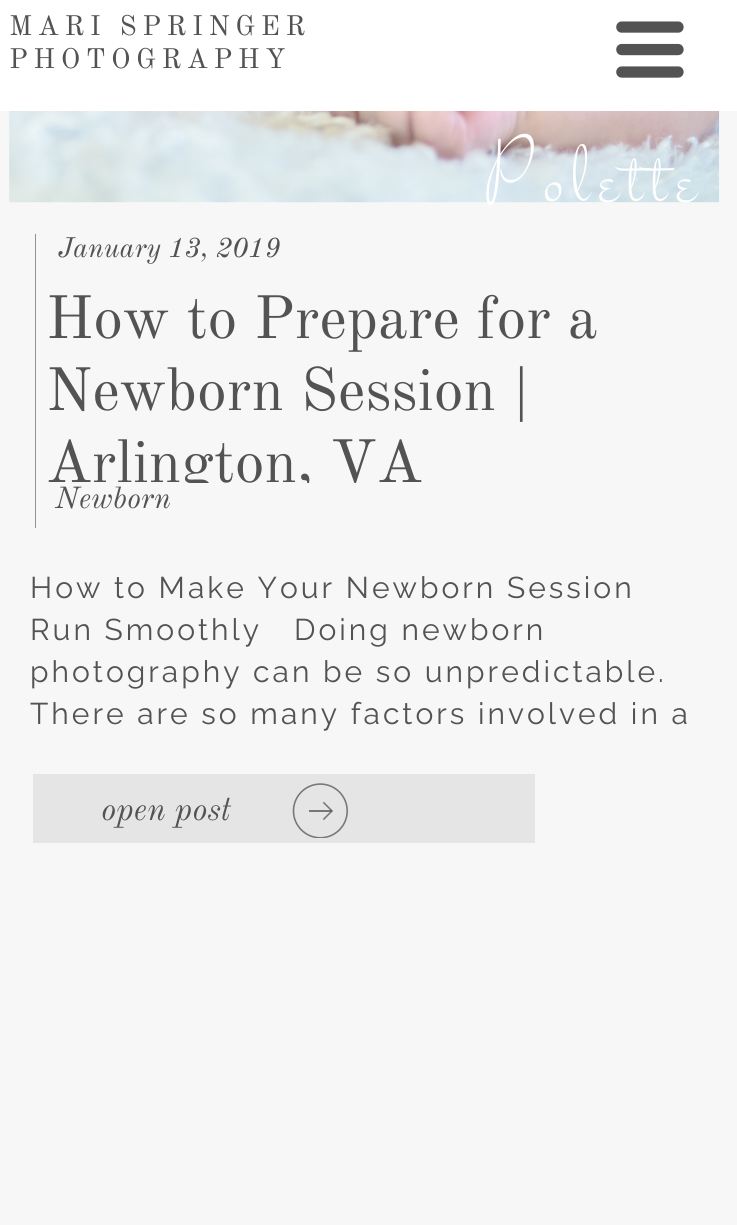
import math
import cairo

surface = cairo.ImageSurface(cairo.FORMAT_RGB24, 737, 1225)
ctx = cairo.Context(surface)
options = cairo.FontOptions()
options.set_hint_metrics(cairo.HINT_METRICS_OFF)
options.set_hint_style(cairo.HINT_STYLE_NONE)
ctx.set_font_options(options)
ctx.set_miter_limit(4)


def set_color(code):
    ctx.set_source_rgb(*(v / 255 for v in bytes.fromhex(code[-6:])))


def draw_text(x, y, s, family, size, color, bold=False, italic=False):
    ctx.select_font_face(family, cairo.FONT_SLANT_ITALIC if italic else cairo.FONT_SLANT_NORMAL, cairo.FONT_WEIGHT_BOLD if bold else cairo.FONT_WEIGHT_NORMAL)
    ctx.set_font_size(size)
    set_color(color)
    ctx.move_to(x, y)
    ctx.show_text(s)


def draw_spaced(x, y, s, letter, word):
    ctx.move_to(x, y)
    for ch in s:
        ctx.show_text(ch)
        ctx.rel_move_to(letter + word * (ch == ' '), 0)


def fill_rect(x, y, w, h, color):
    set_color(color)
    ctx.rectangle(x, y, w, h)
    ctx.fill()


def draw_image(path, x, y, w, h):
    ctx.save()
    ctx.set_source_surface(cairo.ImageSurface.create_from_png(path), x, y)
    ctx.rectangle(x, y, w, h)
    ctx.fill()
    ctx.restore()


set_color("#f7f7f7")
ctx.paint()
fill_rect(0, 0, 737, 111, "#ffffff")
ctx.select_font_face("Old Standard TT")
ctx.set_font_size(27.75)
set_color("#535353")
draw_spaced(9, 35, "MARI SPRINGER", 5.5, 0)
draw_spaced(9, 68, "PHOTOGRAPHY", 5.5, 0)
draw_image("assets/img1.png", 616, 21, 68, 57)
draw_image("assets/img2.png", 9, 111, 711, 92)
ctx.select_font_face("Stalemate")
ctx.set_font_size(92)
set_color("#ffffff")
draw_spaced(483, 202, "Polette", 9.25, 0)
fill_rect(35, 234, 1, 294, "#929292")
draw_text(58, 257, "January 13, 2019", "Old Standard TT", 27.75, "#535353", italic=True)
draw_text(46, 338, "How to Prepare for a", "Old Standard TT", 60, "#535353")
draw_text(46, 410, "Newborn Session |", "Old Standard TT", 60, "#535353")
ctx.save()
ctx.rectangle(46, 288, 687, 195)
ctx.clip()
draw_text(46, 482, "Arlington, VA", "Old Standard TT", 60, "#535353")
ctx.restore()
draw_text(55, 508, "Newborn", "Old Standard TT", 30, "#535353", italic=True)
ctx.select_font_face("Raleway Thin")
draw_spaced(30, 598, "How to Make Your Newborn Session", 3, 0)
draw_spaced(30, 640, "Run Smoothly   Doing newborn", 3, 0)
draw_spaced(30, 682, "photography can be so unpredictable.", 3, 0)
draw_spaced(30, 724, "There are so many factors involved in a", 3, 0)
fill_rect(33, 774, 502, 69, "#e5e5e5")
draw_text(101, 820, "open post", "Old Standard TT", 32.5, "#535353", italic=True)
draw_image("assets/img3.png", 292, 783, 56, 55)
surface.write_to_png("output.png")
